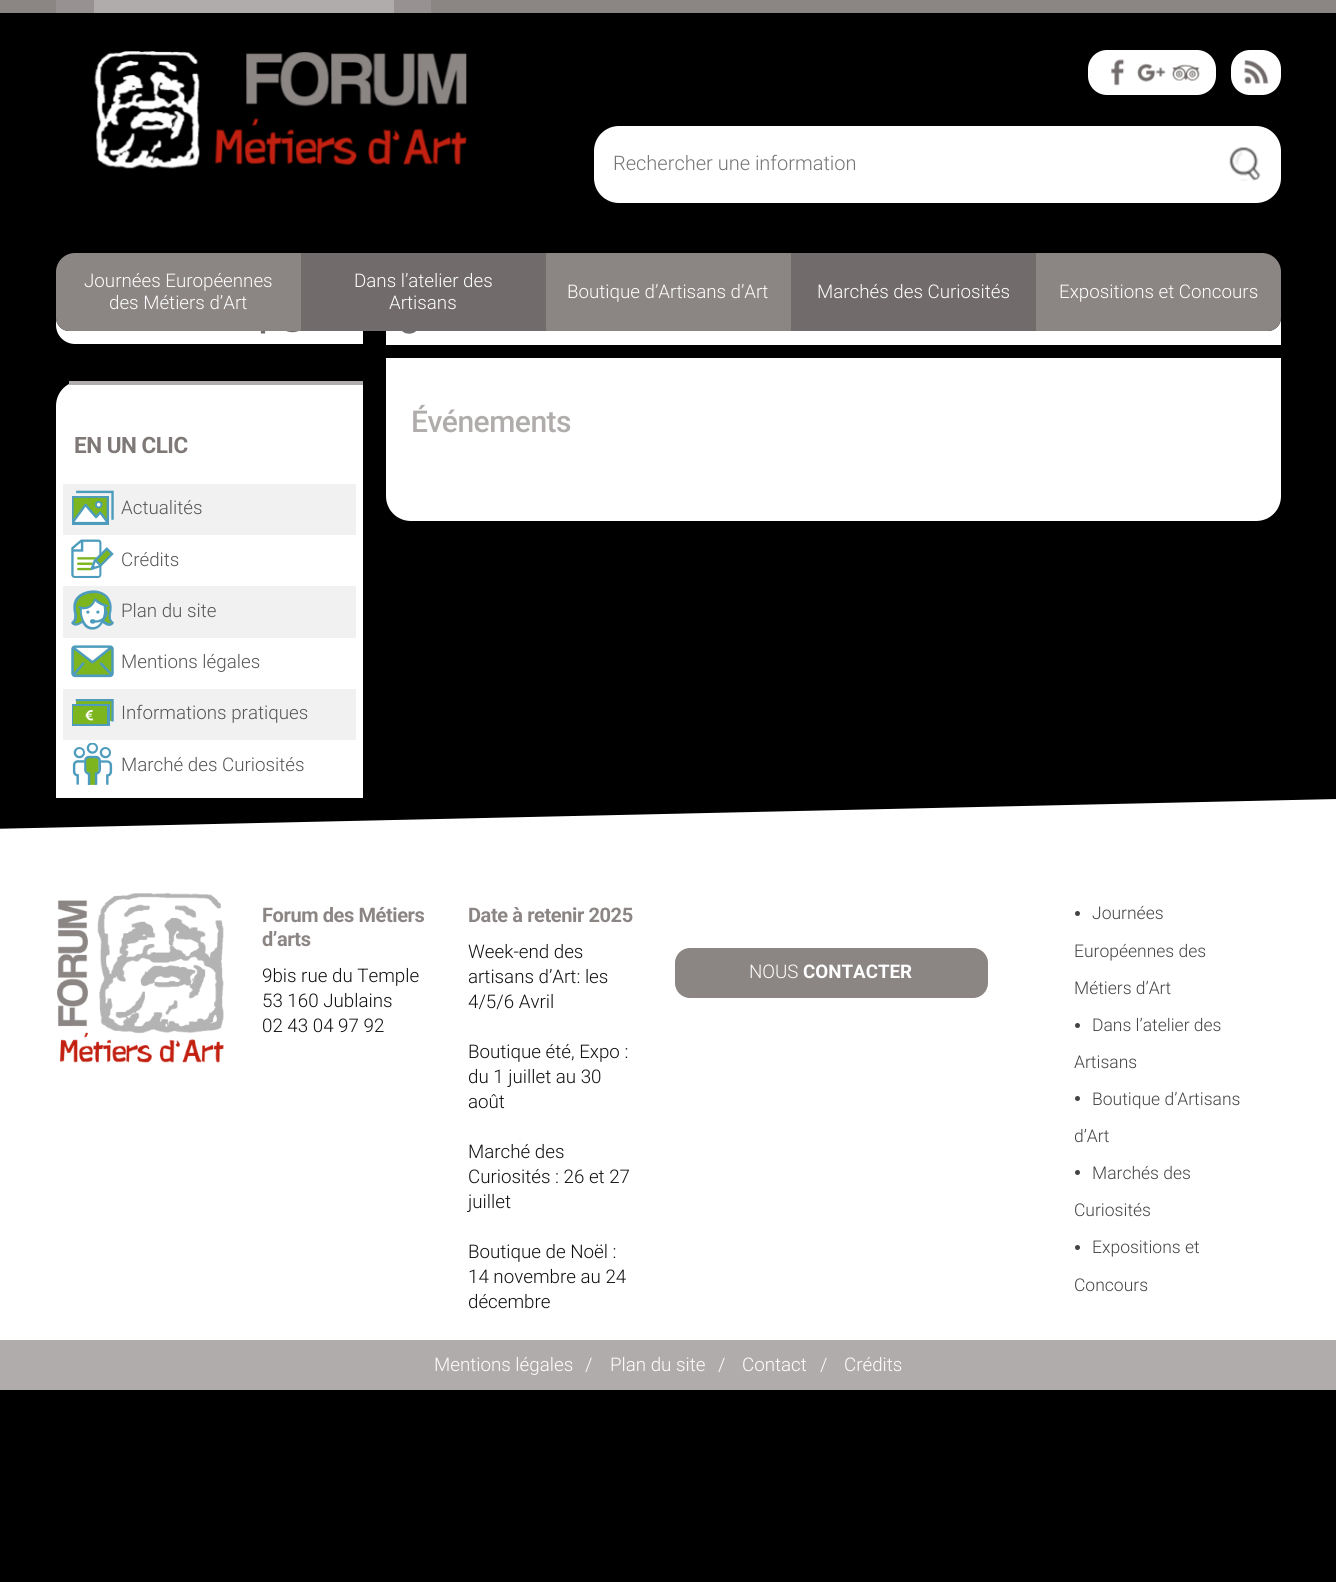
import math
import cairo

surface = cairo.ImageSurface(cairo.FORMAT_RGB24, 1336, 1582)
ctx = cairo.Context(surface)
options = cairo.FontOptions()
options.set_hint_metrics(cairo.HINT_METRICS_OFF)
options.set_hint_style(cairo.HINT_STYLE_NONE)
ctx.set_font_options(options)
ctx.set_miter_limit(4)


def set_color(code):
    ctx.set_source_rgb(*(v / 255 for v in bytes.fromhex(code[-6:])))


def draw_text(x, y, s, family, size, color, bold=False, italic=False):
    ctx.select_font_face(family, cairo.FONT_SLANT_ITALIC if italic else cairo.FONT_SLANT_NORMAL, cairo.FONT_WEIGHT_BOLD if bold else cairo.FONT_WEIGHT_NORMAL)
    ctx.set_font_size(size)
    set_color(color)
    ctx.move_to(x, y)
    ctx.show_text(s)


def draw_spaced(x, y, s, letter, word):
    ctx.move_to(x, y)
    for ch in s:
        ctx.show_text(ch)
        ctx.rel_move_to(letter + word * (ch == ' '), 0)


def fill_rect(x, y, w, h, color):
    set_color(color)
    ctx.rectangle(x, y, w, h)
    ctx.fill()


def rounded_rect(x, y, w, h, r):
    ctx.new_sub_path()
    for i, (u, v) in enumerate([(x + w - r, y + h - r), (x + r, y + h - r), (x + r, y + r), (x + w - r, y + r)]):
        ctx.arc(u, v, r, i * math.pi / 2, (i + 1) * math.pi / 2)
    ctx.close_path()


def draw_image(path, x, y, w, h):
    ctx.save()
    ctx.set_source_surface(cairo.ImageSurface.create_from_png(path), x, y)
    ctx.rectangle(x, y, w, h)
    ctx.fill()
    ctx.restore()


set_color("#000000")
ctx.paint()
fill_rect(0, 0, 1336, 13, "#8b8584")
fill_rect(56, 0, 375, 13, "#979291")
fill_rect(94, 0, 300, 13, "#b0acab")
draw_image("assets/img1.png", 94, 51, 373, 118)
set_color("#ffffff")
rounded_rect(1088, 50, 128, 45, 19)
ctx.fill()
draw_image("assets/img2.png", 1111, 59, 14, 27)
draw_image("assets/img3.png", 1137, 63, 29, 19)
draw_image("assets/img4.png", 1172, 64, 28, 17)
rounded_rect(1231, 50, 50, 45, 19)
ctx.fill()
draw_image("assets/img5.png", 1244, 60, 25, 24)
rounded_rect(594, 126, 687, 77, 25)
ctx.fill()
draw_text(613, 170, "Rechercher une information", "Roboto Light", 20, "#757575")
draw_image("assets/img6.png", 1229, 147, 32, 34)
fill_rect(386, 318, 895, 27, "#ffffff")
ctx.new_path()
ctx.move_to(75, 299)
ctx.line_to(363, 299)
ctx.line_to(363, 344)
ctx.line_to(75, 344)
ctx.curve_to(64.5, 344, 56, 335.5, 56, 325)
ctx.line_to(56, 318)
ctx.curve_to(56, 307.5, 64.5, 299, 75, 299)
ctx.close_path()
ctx.fill()
ctx.set_source_rgba(0, 0, 0, 0.95)
ctx.new_path()
ctx.move_to(56, 253)
ctx.line_to(1281, 253)
ctx.line_to(1281, 318)
ctx.curve_to(1281, 325, 1275, 331, 1268, 331)
ctx.line_to(69, 331)
ctx.curve_to(62, 331, 56, 325, 56, 318)
ctx.close_path()
ctx.fill()
set_color("#8b8584")
ctx.new_path()
ctx.move_to(75, 253)
ctx.line_to(301, 253)
ctx.line_to(301, 331)
ctx.line_to(69, 331)
ctx.curve_to(62, 331, 56, 325, 56, 318)
ctx.line_to(56, 272)
ctx.curve_to(56, 261.5, 64.5, 253, 75, 253)
ctx.close_path()
ctx.fill()
draw_text(84, 287, "Journées Européennes", "Roboto Light", 18.75, "#ffffff")
draw_text(109, 309, "des Métiers d’Art", "Roboto Light", 18.75, "#ffffff")
fill_rect(301, 253, 245, 78, "#716c6b")
draw_text(354, 287, "Dans l’atelier des", "Roboto Light", 18.75, "#ffffff")
draw_text(389, 309, "Artisans", "Roboto Light", 18.75, "#ffffff")
fill_rect(546, 253, 245, 78, "#8b8584")
draw_text(567, 298, "Boutique d’Artisans d’Art", "Roboto Light", 18.75, "#ffffff")
fill_rect(791, 253, 245, 78, "#716c6b")
draw_text(817, 298, "Marchés des Curiosités", "Roboto Light", 18.75, "#ffffff")
set_color("#8b8584")
ctx.new_path()
ctx.move_to(1036, 253)
ctx.line_to(1262, 253)
ctx.curve_to(1272.5, 253, 1281, 261.5, 1281, 272)
ctx.line_to(1281, 318)
ctx.curve_to(1281, 325, 1275, 331, 1268, 331)
ctx.line_to(1036, 331)
ctx.close_path()
ctx.fill()
draw_text(1059, 298, "Expositions et Concours", "Roboto Light", 18.75, "#ffffff")
draw_image("assets/img7.png", 402, 331, 14, 3)
ctx.new_path()
ctx.move_to(386, 358)
ctx.line_to(1281, 358)
ctx.line_to(1281, 496)
ctx.curve_to(1281, 510, 1270, 521, 1256, 521)
ctx.line_to(411, 521)
ctx.curve_to(397, 521, 386, 510, 386, 496)
ctx.close_path()
ctx.fill()
ctx.select_font_face("Roboto Medium")
ctx.set_font_size(30)
set_color("#b0acab")
draw_spaced(411, 432, "Événements", -0.5, 0)
draw_image("assets/img8.png", 260, 331, 6, 3)
draw_image("assets/img9.png", 286, 331, 13, 2)
set_color("#ffffff")
ctx.new_path()
ctx.move_to(81, 381)
ctx.line_to(363, 381)
ctx.line_to(363, 798)
ctx.line_to(56, 798)
ctx.line_to(56, 406)
ctx.curve_to(56, 392, 67, 381, 81, 381)
ctx.close_path()
ctx.fill()
fill_rect(69, 381, 294, 4, "#b0acab")
ctx.select_font_face("Roboto", cairo.FONT_SLANT_NORMAL, cairo.FONT_WEIGHT_BOLD)
ctx.set_font_size(22.5)
set_color("#7e7877")
draw_spaced(74, 453, "EN UN CLIC", -0.5, 0)
fill_rect(63, 484, 293, 51, "#f1f1f1")
draw_image("assets/img10.png", 72, 490, 42, 35)
draw_text(121, 514, "Actualités", "Roboto Light", 18.75, "#555555")
draw_image("assets/img11.png", 71, 539, 43, 39)
draw_text(121, 566, "Crédits", "Roboto Light", 18.75, "#555555")
fill_rect(63, 586, 293, 52, "#f1f1f1")
draw_image("assets/img12.png", 71, 590, 43, 40)
draw_text(121, 617, "Plan du site", "Roboto Light", 18.75, "#555555")
draw_image("assets/img13.png", 71, 645, 43, 33)
draw_text(121, 668, "Mentions légales", "Roboto Light", 18.75, "#555555")
fill_rect(63, 689, 293, 51, "#f1f1f1")
draw_image("assets/img14.png", 72, 699, 42, 27)
draw_text(121, 719, "Informations pratiques", "Roboto Light", 18.75, "#555555")
draw_image("assets/img15.png", 72, 743, 41, 42)
draw_text(121, 771, "Marché des Curiosités", "Roboto Light", 18.75, "#555555")
fill_rect(0, 848, 1336, 492, "#ffffff")
ctx.save()
ctx.rectangle(0, 798, 1336, 50)
ctx.clip()
ctx.new_path()
ctx.move_to(-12, 829)
ctx.line_to(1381, 798)
ctx.line_to(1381, 866)
ctx.line_to(-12, 866)
ctx.close_path()
ctx.fill()
ctx.restore()
draw_image("assets/img16.png", 57, 893, 167, 170)
ctx.select_font_face("Roboto", cairo.FONT_SLANT_NORMAL, cairo.FONT_WEIGHT_BOLD)
ctx.set_font_size(20)
set_color("#8b8584")
draw_spaced(262, 922, "Forum des Métiers", -0.4, 0)
draw_spaced(262, 946, "d’arts", -0.4, 0)
draw_text(262, 982, "9bis rue du Temple", "Roboto Light", 18.75, "#111111")
draw_text(262, 1007, "53 160 Jublains", "Roboto Light", 18.75, "#111111")
draw_text(262, 1032, "02 43 04 97 92", "Roboto Light", 18.75, "#111111")
ctx.select_font_face("Roboto", cairo.FONT_SLANT_NORMAL, cairo.FONT_WEIGHT_BOLD)
ctx.set_font_size(20)
set_color("#8b8584")
draw_spaced(468, 922, "Date à retenir 2025", -0.4, 0)
draw_text(468, 958, "Week-end des", "Roboto Light", 18.75, "#111111")
draw_text(468, 983, "artisans d’Art: les", "Roboto Light", 18.75, "#111111")
draw_text(468, 1008, "4/5/6 Avril", "Roboto Light", 18.75, "#111111")
draw_text(468, 1058, "Boutique été, Expo :", "Roboto Light", 18.75, "#111111")
draw_text(468, 1083, "du 1 juillet au 30", "Roboto Light", 18.75, "#111111")
draw_text(468, 1108, "août", "Roboto Light", 18.75, "#111111")
draw_text(468, 1158, "Marché des", "Roboto Light", 18.75, "#111111")
draw_text(468, 1183, "Curiosités : 26 et 27", "Roboto Light", 18.75, "#111111")
draw_text(468, 1208, "juillet", "Roboto Light", 18.75, "#111111")
draw_text(468, 1258, "Boutique de Noël :", "Roboto Light", 18.75, "#111111")
draw_text(468, 1283, "14 novembre au 24", "Roboto Light", 18.75, "#111111")
draw_text(468, 1308, "décembre", "Roboto Light", 18.75, "#111111")
set_color("#8b8584")
rounded_rect(675, 948, 313, 50, 15)
ctx.fill()
draw_text(749, 978, "NOUS", "Roboto Light", 18.75, "#ffffff")
draw_text(803, 978, "CONTACTER", "Roboto", 18.75, "#ffffff", bold=True)
set_color("#444444")
ctx.new_path()
ctx.arc(1077.5, 913.5, 2.5, 0, 2 * math.pi)
ctx.fill()
draw_text(1092, 919, "Journées", "Roboto Light", 17.5, "#444444")
draw_text(1074, 957, "Européennes des", "Roboto Light", 17.5, "#444444")
draw_text(1074, 994, "Métiers d’Art", "Roboto Light", 17.5, "#444444")
ctx.new_path()
ctx.arc(1077.5, 1025.5, 2.5, 0, 2 * math.pi)
ctx.fill()
draw_text(1092, 1031, "Dans l’atelier des", "Roboto Light", 17.5, "#444444")
draw_text(1074, 1068, "Artisans", "Roboto Light", 17.5, "#444444")
ctx.new_path()
ctx.arc(1077.5, 1098.5, 2.5, 0, 2 * math.pi)
ctx.fill()
draw_text(1092, 1105, "Boutique d’Artisans", "Roboto Light", 17.5, "#444444")
draw_text(1074, 1142, "d’Art", "Roboto Light", 17.5, "#444444")
ctx.new_path()
ctx.arc(1077.5, 1172.5, 2.5, 0, 2 * math.pi)
ctx.fill()
draw_text(1092, 1179, "Marchés des", "Roboto Light", 17.5, "#444444")
draw_text(1074, 1216, "Curiosités", "Roboto Light", 17.5, "#444444")
ctx.new_path()
ctx.arc(1077.5, 1247.5, 2.5, 0, 2 * math.pi)
ctx.fill()
draw_text(1092, 1253, "Expositions et", "Roboto Light", 17.5, "#444444")
draw_text(1074, 1291, "Concours", "Roboto Light", 17.5, "#444444")
fill_rect(0, 1340, 1336, 50, "#b0acab")
draw_text(434, 1371, "Mentions légales", "Roboto Light", 18.75, "#ffffff")
draw_text(585, 1371, "/", "Roboto Light", 18.75, "#ffffff")
draw_text(610, 1371, "Plan du site", "Roboto Light", 18.75, "#ffffff")
draw_text(718, 1371, "/", "Roboto Light", 18.75, "#ffffff")
draw_text(742, 1371, "Contact", "Roboto Light", 18.75, "#ffffff")
draw_text(820, 1371, "/", "Roboto Light", 18.75, "#ffffff")
draw_text(844, 1371, "Crédits", "Roboto Light", 18.75, "#ffffff")
surface.write_to_png("output.png")
